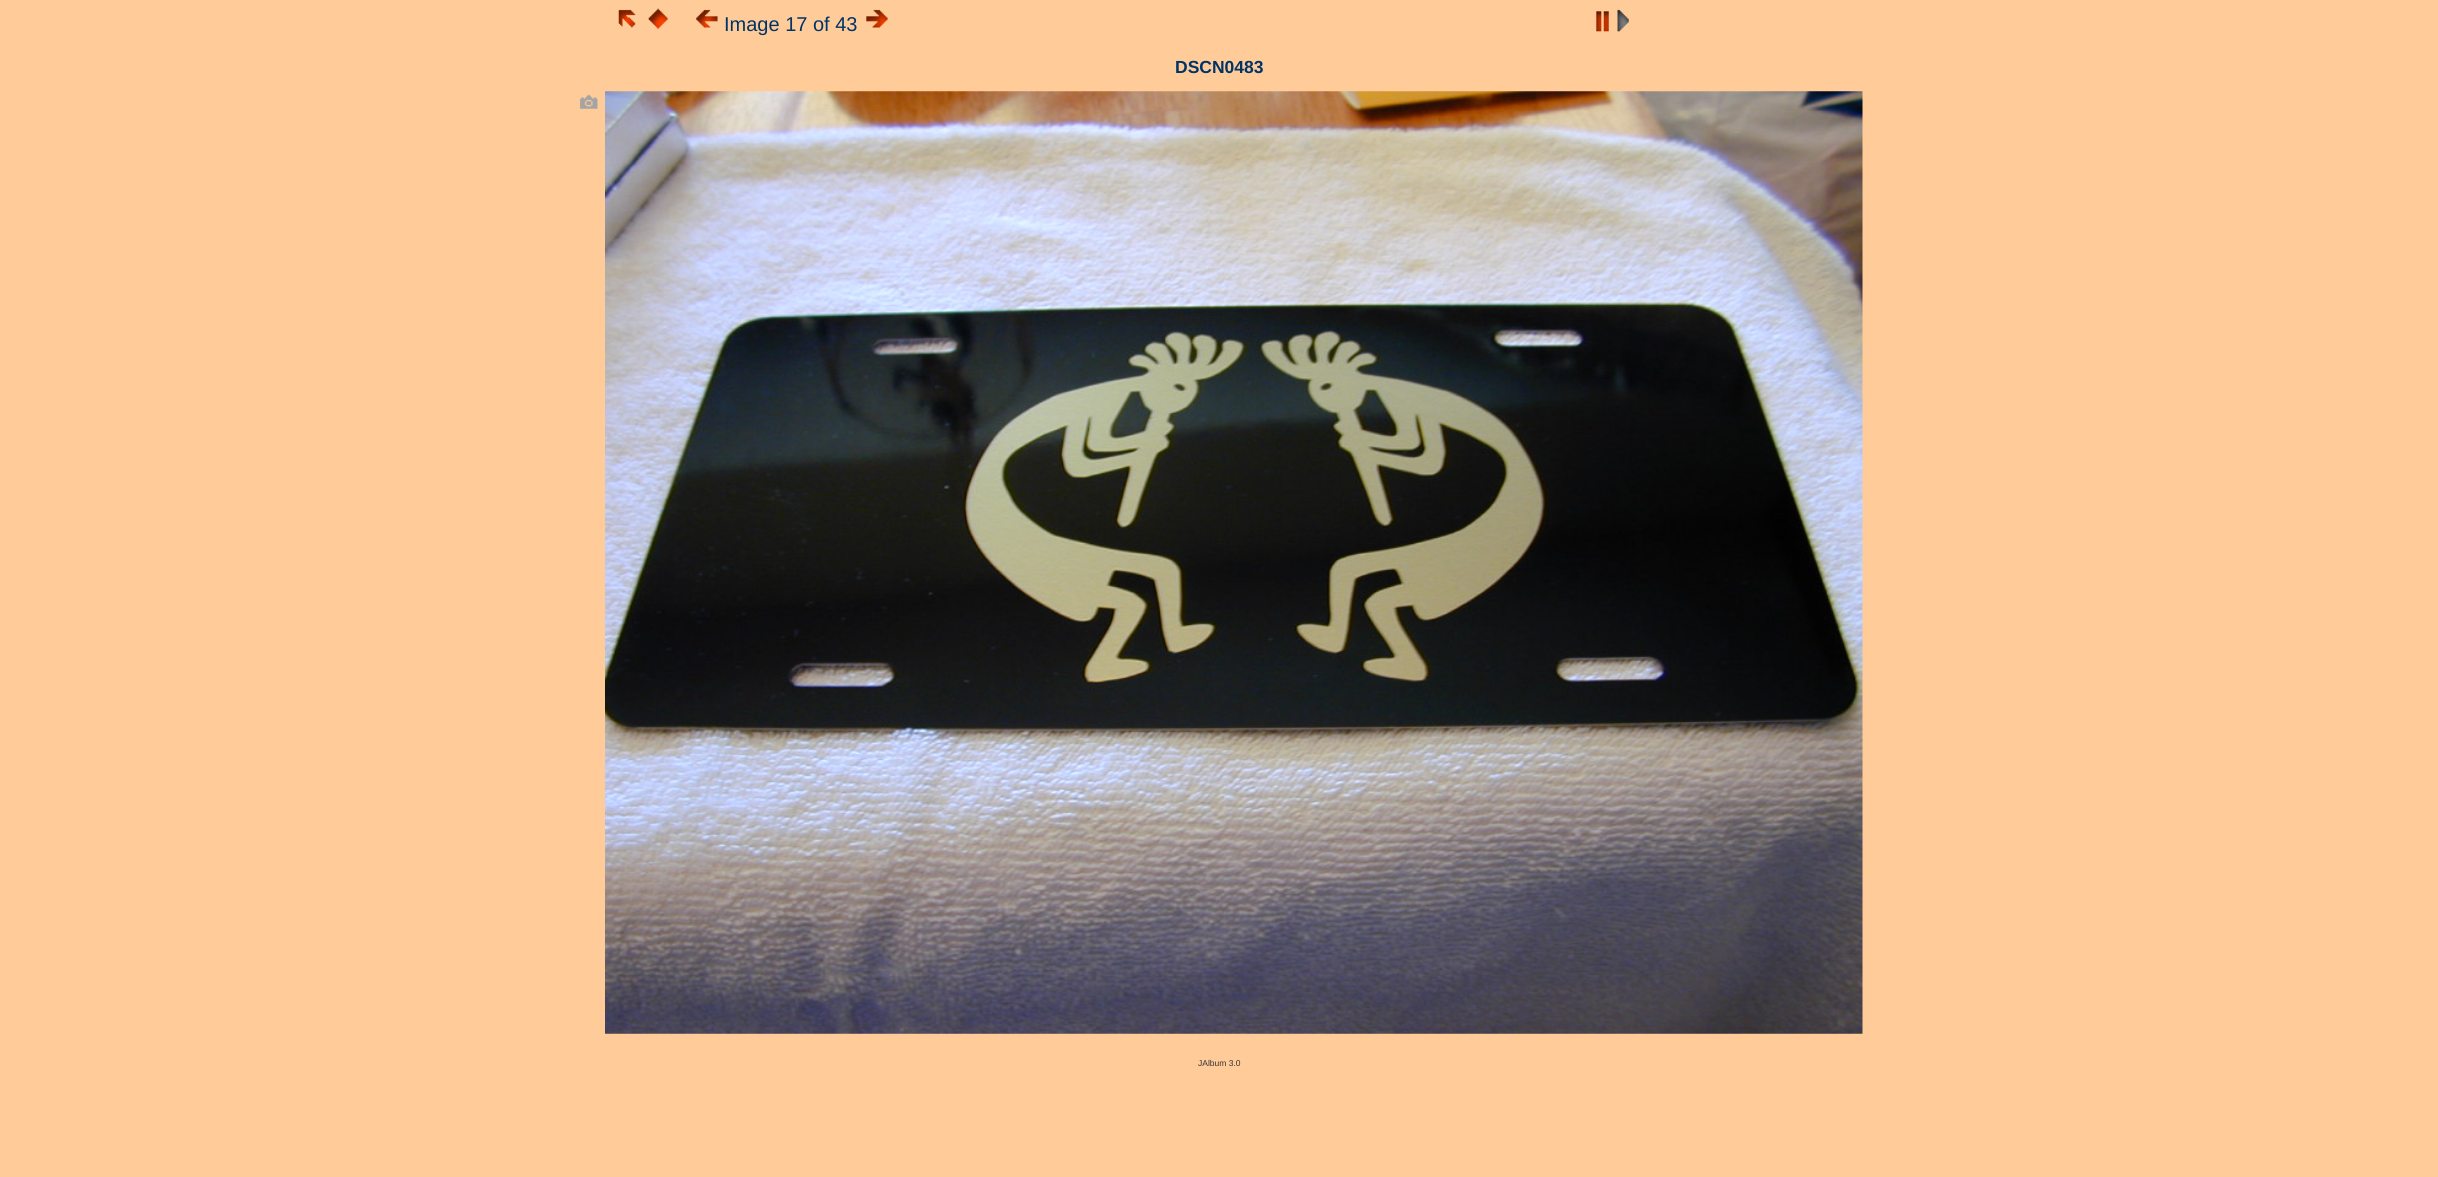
import math
import cairo

surface = cairo.ImageSurface(cairo.FORMAT_RGB24, 2438, 1177)
ctx = cairo.Context(surface)
options = cairo.FontOptions()
options.set_hint_metrics(cairo.HINT_METRICS_OFF)
options.set_hint_style(cairo.HINT_STYLE_NONE)
ctx.set_font_options(options)
ctx.set_miter_limit(4)


def set_color(code):
    ctx.set_source_rgb(*(v / 255 for v in bytes.fromhex(code[-6:])))


def draw_text(x, y, s, family, size, color, bold=False, italic=False):
    ctx.select_font_face(family, cairo.FONT_SLANT_ITALIC if italic else cairo.FONT_SLANT_NORMAL, cairo.FONT_WEIGHT_BOLD if bold else cairo.FONT_WEIGHT_NORMAL)
    ctx.set_font_size(size)
    set_color(color)
    ctx.move_to(x, y)
    ctx.show_text(s)


def draw_image(path, x, y, w, h):
    ctx.save()
    ctx.set_source_surface(cairo.ImageSurface.create_from_png(path), x, y)
    ctx.rectangle(x, y, w, h)
    ctx.fill()
    ctx.restore()


set_color("#ffcc99")
ctx.paint()
draw_image("assets/img1.png", 618, 9, 18, 19)
draw_image("assets/img2.png", 648, 8, 20, 21)
draw_image("assets/img3.png", 696, 9, 22, 19)
draw_text(724, 31, "Image 17 of 43", "Liberation Sans", 20, "#003366")
draw_image("assets/img4.png", 866, 9, 22, 19)
draw_image("assets/img5.png", 1596, 9, 33, 23)
draw_text(1175, 73, "DSCN0483", "Liberation Sans", 17.5, "#003366", bold=True)
draw_image("assets/img6.png", 579, 94, 19, 15)
draw_image("assets/img7.png", 605, 91, 1258, 943)
draw_text(1198, 1066, "JAlbum 3.0", "Liberation Sans", 8.5, "#333333")
surface.write_to_png("output.png")
